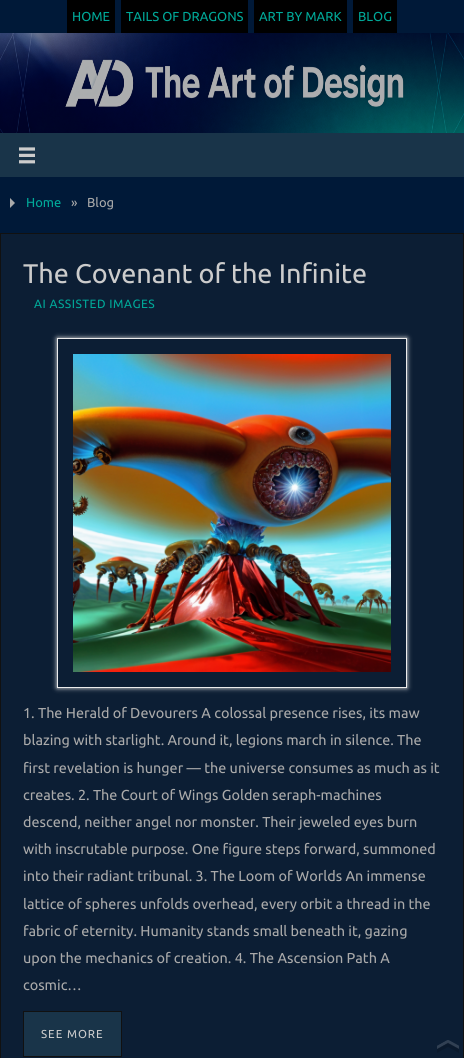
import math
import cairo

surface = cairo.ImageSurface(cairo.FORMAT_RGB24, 464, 1058)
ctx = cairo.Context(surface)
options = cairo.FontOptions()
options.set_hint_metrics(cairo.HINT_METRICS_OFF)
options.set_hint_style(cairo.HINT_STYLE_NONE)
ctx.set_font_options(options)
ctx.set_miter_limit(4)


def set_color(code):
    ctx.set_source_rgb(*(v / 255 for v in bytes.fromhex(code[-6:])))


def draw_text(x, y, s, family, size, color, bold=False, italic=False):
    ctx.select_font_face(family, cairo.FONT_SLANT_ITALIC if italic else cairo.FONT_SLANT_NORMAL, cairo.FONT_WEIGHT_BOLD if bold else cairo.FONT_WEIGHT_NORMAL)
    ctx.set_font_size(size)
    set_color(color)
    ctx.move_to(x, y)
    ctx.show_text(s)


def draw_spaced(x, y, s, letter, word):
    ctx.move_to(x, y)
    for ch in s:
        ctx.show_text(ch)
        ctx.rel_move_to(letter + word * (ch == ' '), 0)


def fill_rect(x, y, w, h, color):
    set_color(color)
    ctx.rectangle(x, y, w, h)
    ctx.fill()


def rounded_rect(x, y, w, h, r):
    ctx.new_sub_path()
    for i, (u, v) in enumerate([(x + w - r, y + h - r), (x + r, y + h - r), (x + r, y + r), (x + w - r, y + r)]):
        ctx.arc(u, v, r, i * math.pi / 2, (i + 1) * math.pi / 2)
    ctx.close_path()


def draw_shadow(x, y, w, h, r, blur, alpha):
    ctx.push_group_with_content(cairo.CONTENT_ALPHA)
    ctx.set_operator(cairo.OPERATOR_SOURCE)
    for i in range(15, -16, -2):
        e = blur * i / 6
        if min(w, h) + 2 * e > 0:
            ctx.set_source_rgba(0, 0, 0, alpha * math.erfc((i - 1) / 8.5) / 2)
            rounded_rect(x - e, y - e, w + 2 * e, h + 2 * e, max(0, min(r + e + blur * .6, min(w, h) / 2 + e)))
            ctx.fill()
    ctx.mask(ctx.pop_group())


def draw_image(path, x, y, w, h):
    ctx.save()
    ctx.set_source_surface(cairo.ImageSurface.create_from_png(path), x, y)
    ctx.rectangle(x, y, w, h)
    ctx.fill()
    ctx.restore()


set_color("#001938")
ctx.paint()
fill_rect(67, 0, 48, 33, "#000000")
draw_text(72, 21, "HOME", "Ubuntu", 13, "#00a999")
fill_rect(121, 0, 127, 33, "#000000")
draw_text(126, 21, "TAILS OF DRAGONS", "Ubuntu", 13, "#00a999")
fill_rect(254, 0, 93, 33, "#000000")
draw_text(259, 21, "ART BY MARK", "Ubuntu", 13, "#00a999")
fill_rect(353, 0, 44, 33, "#000000")
draw_text(358, 21, "BLOG", "Ubuntu", 13, "#00a999")
draw_image("assets/img1.png", 0, 33, 464, 100)
fill_rect(0, 133, 464, 44, "#193449")
draw_image("assets/img2.png", 19, 147, 16, 17)
set_color("#aaaaaa")
ctx.new_path()
ctx.move_to(10, 208)
ctx.line_to(10, 198)
ctx.line_to(15, 203)
ctx.close_path()
ctx.fill()
draw_text(26, 207, "Home", "Ubuntu", 13, "#00a999")
draw_text(71, 207, "»", "Ubuntu", 13, "#aaaaaa")
draw_text(87, 207, "Blog", "Ubuntu", 13, "#aaaaaa")
set_color("#0c1e34")
ctx.rectangle(0.5, 233.5, 463, 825)
ctx.fill_preserve()
set_color("#111111")
ctx.set_line_width(1)
ctx.stroke()
draw_text(23, 283, "The Covenant of the Infinite", "Ubuntu", 27, "#cccccc")
ctx.set_font_size(12)
set_color("#00a999")
draw_spaced(34, 308, "AI ASSISTED IMAGES", 0.5, 0)
ctx.save()
ctx.set_fill_rule(cairo.FILL_RULE_EVEN_ODD)
ctx.new_path()
ctx.move_to(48, 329)
ctx.line_to(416, 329)
ctx.line_to(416, 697)
ctx.line_to(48, 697)
ctx.close_path()
ctx.move_to(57, 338)
ctx.line_to(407, 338)
ctx.line_to(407, 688)
ctx.line_to(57, 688)
ctx.close_path()
ctx.clip()
set_color("#e5e5e5")
draw_shadow(57, 338, 350, 350, 0, 2.5, 1)
ctx.restore()
ctx.rectangle(57.5, 338.5, 349, 349)
set_color("#ececec")
ctx.stroke()
draw_image("assets/img3.png", 73, 354, 318, 318)
draw_text(23, 718, "1. The Herald of Devourers A colossal presence rises, its maw", "Ubuntu", 14.4, "#aaaaaa")
draw_text(23, 745, "blazing with starlight. Around it, legions march in silence. The", "Ubuntu", 14.4, "#aaaaaa")
draw_text(23, 773, "first revelation is hunger — the universe consumes as much as it", "Ubuntu", 14.4, "#aaaaaa")
draw_text(23, 800, "creates. 2. The Court of Wings Golden seraph-machines", "Ubuntu", 14.4, "#aaaaaa")
draw_text(23, 827, "descend, neither angel nor monster. Their jeweled eyes burn", "Ubuntu", 14.4, "#aaaaaa")
draw_text(23, 854, "with inscrutable purpose. One figure steps forward, summoned", "Ubuntu", 14.4, "#aaaaaa")
draw_text(23, 881, "into their radiant tribunal. 3. The Loom of Worlds An immense", "Ubuntu", 14.4, "#aaaaaa")
draw_text(23, 909, "lattice of spheres unfolds overhead, every orbit a thread in the", "Ubuntu", 14.4, "#aaaaaa")
draw_text(23, 936, "fabric of eternity. Humanity stands small beneath it, gazing", "Ubuntu", 14.4, "#aaaaaa")
draw_text(23, 963, "upon the mechanics of creation. 4. The Ascension Path A", "Ubuntu", 14.4, "#aaaaaa")
draw_text(23, 990, "cosmic…", "Ubuntu", 14.4, "#aaaaaa")
set_color("#193449")
ctx.rectangle(23.5, 1011.5, 98, 45)
ctx.fill_preserve()
set_color("#111111")
ctx.stroke()
ctx.set_font_size(11.5)
set_color("#cccccc")
draw_spaced(41, 1038, "SEE MORE", 1, 0)
draw_image("assets/img4.png", 437, 1040, 22, 13)
surface.write_to_png("output.png")
